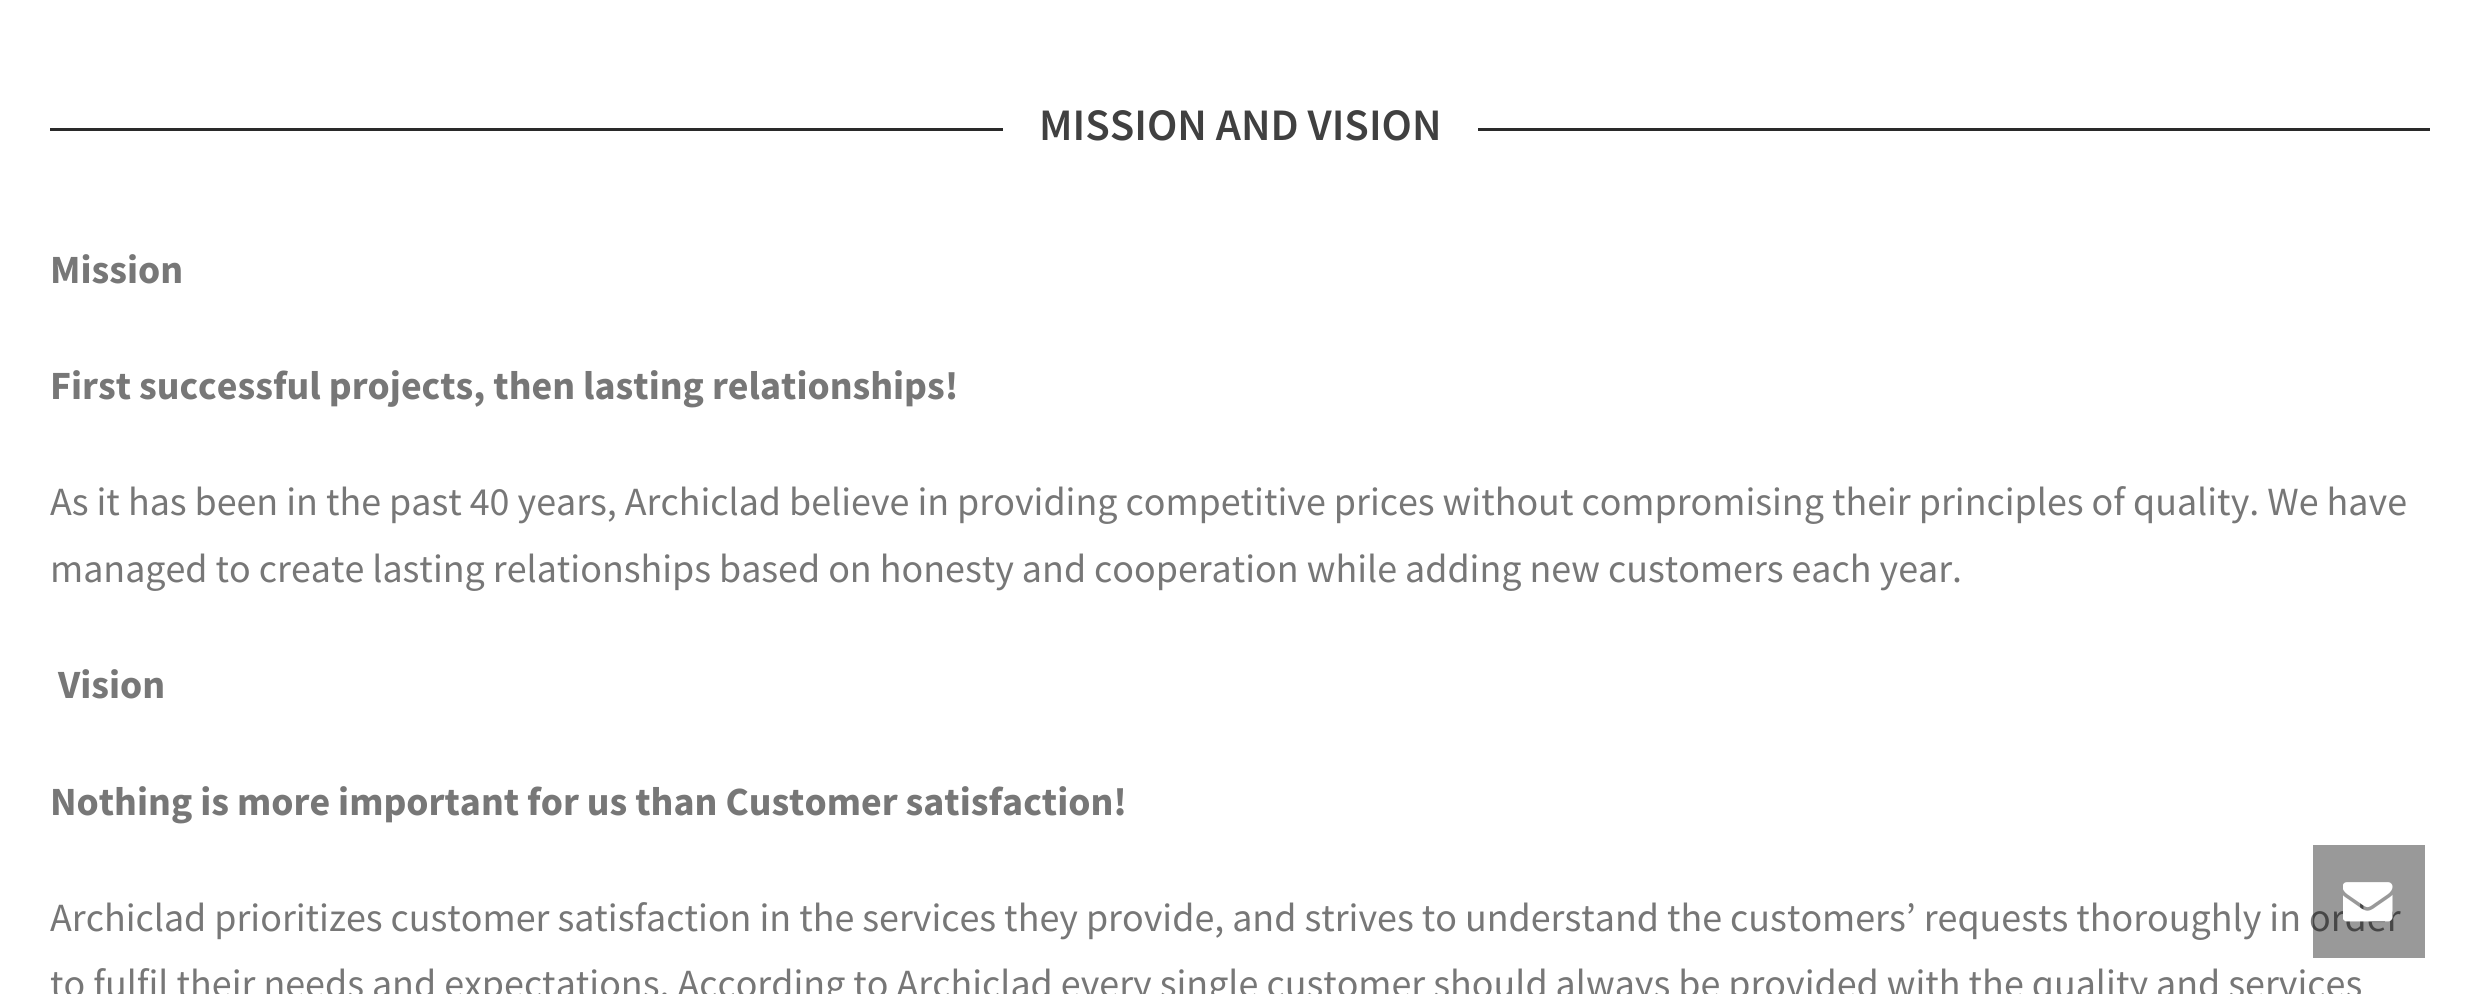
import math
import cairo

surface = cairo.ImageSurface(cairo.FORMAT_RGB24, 2479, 994)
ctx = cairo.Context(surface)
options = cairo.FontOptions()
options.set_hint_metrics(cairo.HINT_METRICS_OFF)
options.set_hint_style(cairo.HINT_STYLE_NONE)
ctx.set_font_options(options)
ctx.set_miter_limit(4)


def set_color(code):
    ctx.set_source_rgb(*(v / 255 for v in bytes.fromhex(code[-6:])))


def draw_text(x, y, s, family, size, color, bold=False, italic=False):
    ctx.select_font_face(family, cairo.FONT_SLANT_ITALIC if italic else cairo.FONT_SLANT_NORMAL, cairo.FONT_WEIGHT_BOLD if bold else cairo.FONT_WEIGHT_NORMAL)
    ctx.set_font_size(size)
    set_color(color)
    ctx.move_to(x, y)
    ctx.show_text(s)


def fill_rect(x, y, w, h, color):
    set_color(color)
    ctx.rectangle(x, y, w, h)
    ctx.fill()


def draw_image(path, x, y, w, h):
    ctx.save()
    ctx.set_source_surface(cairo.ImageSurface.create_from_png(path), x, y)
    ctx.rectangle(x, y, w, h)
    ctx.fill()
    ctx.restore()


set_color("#ffffff")
ctx.paint()
fill_rect(50, 128, 953, 3, "#2a2a2a")
draw_text(1039, 140, "MISSION AND VISION", "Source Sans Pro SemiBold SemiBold", 45, "#404040")
fill_rect(1478, 128, 952, 3, "#2a2a2a")
draw_text(50, 283, "Mission", "Source Sans Pro", 40, "#777777", bold=True)
draw_text(50, 399, "First successful projects, then lasting relationships!", "Source Sans Pro", 40, "#777777", bold=True)
draw_text(50, 515, "As it has been in the past 40 years, Archiclad believe in providing competitive prices without compromising their principles of quality. We have", "Source Sans Pro", 40, "#777777")
draw_text(50, 582, "managed to create lasting relationships based on honesty and cooperation while adding new customers each year.", "Source Sans Pro", 40, "#777777")
draw_text(58, 698, "Vision", "Source Sans Pro", 40, "#777777", bold=True)
draw_text(50, 815, "Nothing is more important for us than Customer satisfaction!", "Source Sans Pro", 40, "#777777", bold=True)
draw_text(50, 931, "Archiclad prioritizes customer satisfaction in the services they provide, and strives to understand the customers’ requests thoroughly in order", "Source Sans Pro", 40, "#777777")
draw_text(50, 997, "to fulfil their needs and expectations. According to Archiclad every single customer should always be provided with the quality and services", "Source Sans Pro", 40, "#777777")
ctx.set_source_rgba(0, 0, 0, 0.4)
ctx.rectangle(2313, 845, 112, 113)
ctx.fill()
draw_image("assets/img1.png", 2343, 882, 50, 40)
surface.write_to_png("output.png")
